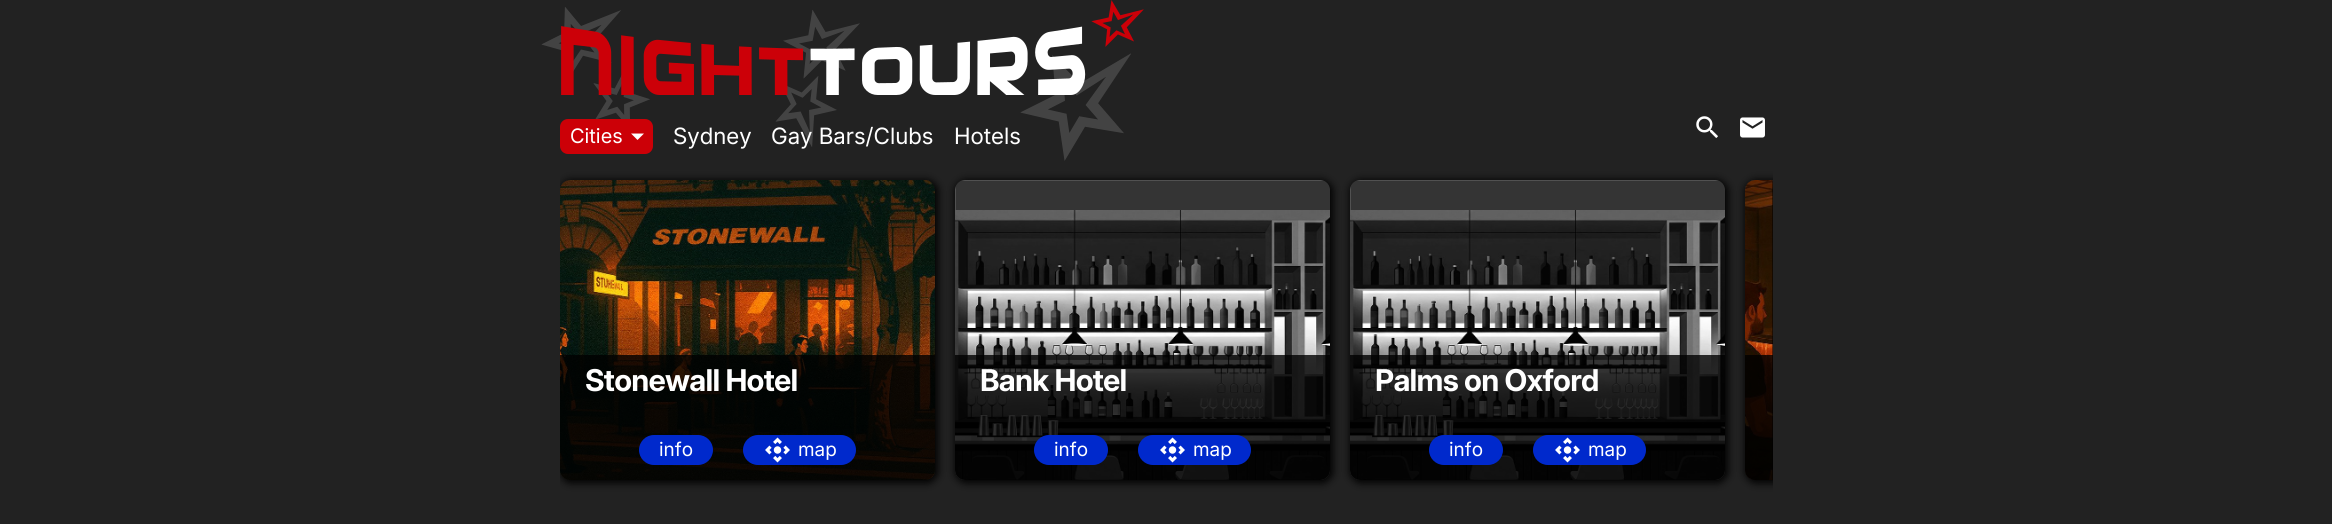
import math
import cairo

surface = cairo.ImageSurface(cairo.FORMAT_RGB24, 2332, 524)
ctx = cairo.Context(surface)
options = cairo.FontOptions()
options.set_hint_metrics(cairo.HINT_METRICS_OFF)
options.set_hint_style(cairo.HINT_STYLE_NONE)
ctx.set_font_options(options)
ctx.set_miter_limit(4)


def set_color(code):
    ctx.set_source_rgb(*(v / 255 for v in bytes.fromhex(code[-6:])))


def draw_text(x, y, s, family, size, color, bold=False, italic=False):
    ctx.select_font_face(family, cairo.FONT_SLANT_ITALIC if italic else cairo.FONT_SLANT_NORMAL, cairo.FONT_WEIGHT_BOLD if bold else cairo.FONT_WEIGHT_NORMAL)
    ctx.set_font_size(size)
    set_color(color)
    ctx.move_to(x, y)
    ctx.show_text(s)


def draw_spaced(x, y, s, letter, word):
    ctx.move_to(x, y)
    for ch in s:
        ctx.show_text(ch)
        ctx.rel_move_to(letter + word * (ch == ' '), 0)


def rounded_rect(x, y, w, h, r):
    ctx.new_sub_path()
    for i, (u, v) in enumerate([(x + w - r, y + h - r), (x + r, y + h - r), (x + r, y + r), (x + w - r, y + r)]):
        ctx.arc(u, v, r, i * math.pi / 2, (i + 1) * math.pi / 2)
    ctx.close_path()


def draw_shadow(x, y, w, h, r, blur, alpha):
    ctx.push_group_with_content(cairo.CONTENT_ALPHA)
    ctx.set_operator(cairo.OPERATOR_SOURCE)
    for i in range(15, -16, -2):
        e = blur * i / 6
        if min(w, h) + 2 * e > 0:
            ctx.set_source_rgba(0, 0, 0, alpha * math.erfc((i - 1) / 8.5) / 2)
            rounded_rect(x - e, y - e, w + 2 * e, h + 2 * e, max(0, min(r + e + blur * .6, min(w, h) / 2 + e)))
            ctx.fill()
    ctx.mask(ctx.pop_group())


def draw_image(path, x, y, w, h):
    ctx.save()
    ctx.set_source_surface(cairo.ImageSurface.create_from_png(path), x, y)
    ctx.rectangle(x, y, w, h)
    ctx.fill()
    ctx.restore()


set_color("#222222")
ctx.paint()
draw_image("assets/img1.png", 541, 7, 590, 154)
draw_image("assets/img2.png", 561, 0, 583, 95)
set_color("#cc0007")
rounded_rect(560, 119, 93, 35, 8)
ctx.fill()
draw_text(570, 143, "Cities", "Inter", 20, "#ffffff")
ctx.new_path()
ctx.move_to(631, 133.5)
ctx.line_to(644, 133.5)
ctx.line_to(637.5, 140)
ctx.close_path()
ctx.fill()
draw_text(673, 144, "Sydney", "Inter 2", 22.5, "#ffffff")
draw_text(771, 144, "Gay Bars/Clubs", "Inter 2", 22.5, "#ffffff")
draw_text(954, 144, "Hotels", "Inter 2", 22.5, "#ffffff")
draw_image("assets/img3.png", 1696, 116, 22, 22)
draw_image("assets/img4.png", 1740, 117, 25, 21)
set_color("#343434")
rounded_rect(560, 180, 375, 300, 10)
ctx.fill()
ctx.save()
ctx.rectangle(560, 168, 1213, 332)
ctx.clip()
set_color("#000000")
draw_shadow(560, 180, 378, 303, 11, 4, 1)
ctx.restore()
draw_image("assets/img5.png", 560, 180, 375, 300)
ctx.set_source_rgba(0, 0, 0, 0.8)
ctx.new_path()
ctx.move_to(560, 355)
ctx.line_to(935, 355)
ctx.line_to(935, 470)
ctx.curve_to(935, 475.5, 930.5, 480, 925, 480)
ctx.line_to(570, 480)
ctx.curve_to(564.5, 480, 560, 475.5, 560, 470)
ctx.close_path()
ctx.fill()
ctx.select_font_face("Inter", cairo.FONT_SLANT_NORMAL, cairo.FONT_WEIGHT_BOLD)
ctx.set_font_size(30)
set_color("#ffffff")
draw_spaced(585, 391, "Stonewall Hotel", -0.75, 0)
set_color("#0029cc")
rounded_rect(639, 435, 74, 30, 15)
ctx.fill()
draw_text(659, 456, "info", "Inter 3", 19, "#ffffff")
set_color("#0029cc")
rounded_rect(743, 435, 113, 30, 15)
ctx.fill()
draw_image("assets/img6.png", 765, 437, 25, 26)
draw_text(798, 456, "map", "Inter 3", 19, "#ffffff")
set_color("#343434")
rounded_rect(955, 180, 375, 300, 10)
ctx.fill()
set_color("#515151")
ctx.set_fill_rule(cairo.FILL_RULE_EVEN_ODD)
ctx.new_path()
ctx.move_to(955, 190)
ctx.line_to(955, 470)
ctx.line_to(956, 474)
ctx.line_to(956, 186)
ctx.close_path()
ctx.move_to(965, 180)
ctx.line_to(961, 181)
ctx.line_to(1324, 181)
ctx.line_to(1320, 180)
ctx.close_path()
ctx.fill()
ctx.save()
ctx.new_path()
ctx.move_to(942, 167)
ctx.line_to(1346, 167)
ctx.line_to(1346, 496)
ctx.line_to(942, 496)
ctx.close_path()
ctx.move_to(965, 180)
ctx.line_to(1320, 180)
ctx.curve_to(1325.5, 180, 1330, 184.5, 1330, 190)
ctx.line_to(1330, 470)
ctx.curve_to(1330, 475.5, 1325.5, 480, 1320, 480)
ctx.line_to(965, 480)
ctx.curve_to(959.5, 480, 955, 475.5, 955, 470)
ctx.line_to(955, 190)
ctx.curve_to(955, 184.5, 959.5, 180, 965, 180)
ctx.close_path()
ctx.clip()
set_color("#000000")
draw_shadow(955, 180, 378, 303, 11, 4, 1)
ctx.restore()
draw_image("assets/img7.png", 955, 210, 375, 270)
ctx.set_source_rgba(0, 0, 0, 0.8)
ctx.new_path()
ctx.move_to(955, 355)
ctx.line_to(1330, 355)
ctx.line_to(1330, 470)
ctx.curve_to(1330, 475.5, 1325.5, 480, 1320, 480)
ctx.line_to(965, 480)
ctx.curve_to(959.5, 480, 955, 475.5, 955, 470)
ctx.close_path()
ctx.fill()
ctx.select_font_face("Inter", cairo.FONT_SLANT_NORMAL, cairo.FONT_WEIGHT_BOLD)
ctx.set_font_size(30)
set_color("#ffffff")
draw_spaced(980, 391, "Bank Hotel", -0.75, 0)
set_color("#0029cc")
rounded_rect(1034, 435, 74, 30, 15)
ctx.fill()
draw_text(1054, 456, "info", "Inter 3", 19, "#ffffff")
set_color("#0029cc")
rounded_rect(1138, 435, 113, 30, 15)
ctx.fill()
draw_image("assets/img6.png", 1160, 437, 25, 26)
draw_text(1193, 456, "map", "Inter 3", 19, "#ffffff")
set_color("#343434")
rounded_rect(1350, 180, 375, 300, 10)
ctx.fill()
set_color("#515151")
ctx.new_path()
ctx.move_to(1350, 190)
ctx.line_to(1350, 470)
ctx.line_to(1351, 474)
ctx.line_to(1351, 186)
ctx.close_path()
ctx.move_to(1360, 180)
ctx.line_to(1356, 181)
ctx.line_to(1719, 181)
ctx.line_to(1715, 180)
ctx.close_path()
ctx.fill()
ctx.save()
ctx.new_path()
ctx.move_to(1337, 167)
ctx.line_to(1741, 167)
ctx.line_to(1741, 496)
ctx.line_to(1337, 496)
ctx.close_path()
ctx.move_to(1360, 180)
ctx.line_to(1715, 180)
ctx.curve_to(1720.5, 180, 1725, 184.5, 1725, 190)
ctx.line_to(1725, 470)
ctx.curve_to(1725, 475.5, 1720.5, 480, 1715, 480)
ctx.line_to(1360, 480)
ctx.curve_to(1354.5, 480, 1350, 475.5, 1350, 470)
ctx.line_to(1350, 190)
ctx.curve_to(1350, 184.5, 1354.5, 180, 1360, 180)
ctx.close_path()
ctx.clip()
set_color("#000000")
draw_shadow(1350, 180, 378, 303, 11, 4, 1)
ctx.restore()
draw_image("assets/img8.png", 1350, 210, 375, 270)
ctx.set_source_rgba(0, 0, 0, 0.8)
ctx.new_path()
ctx.move_to(1350, 355)
ctx.line_to(1725, 355)
ctx.line_to(1725, 470)
ctx.curve_to(1725, 475.5, 1720.5, 480, 1715, 480)
ctx.line_to(1360, 480)
ctx.curve_to(1354.5, 480, 1350, 475.5, 1350, 470)
ctx.close_path()
ctx.fill()
ctx.select_font_face("Inter", cairo.FONT_SLANT_NORMAL, cairo.FONT_WEIGHT_BOLD)
ctx.set_font_size(30)
set_color("#ffffff")
draw_spaced(1375, 391, "Palms on Oxford", -0.75, 0)
set_color("#0029cc")
rounded_rect(1429, 435, 74, 30, 15)
ctx.fill()
draw_text(1449, 456, "info", "Inter 3", 19, "#ffffff")
set_color("#0029cc")
rounded_rect(1533, 435, 113, 30, 15)
ctx.fill()
draw_image("assets/img6.png", 1555, 437, 25, 26)
draw_text(1588, 456, "map", "Inter 3", 19, "#ffffff")
set_color("#343434")
ctx.new_path()
ctx.move_to(1755, 180)
ctx.line_to(1773, 180)
ctx.line_to(1773, 480)
ctx.line_to(1755, 480)
ctx.curve_to(1749.5, 480, 1745, 475.5, 1745, 470)
ctx.line_to(1745, 190)
ctx.curve_to(1745, 184.5, 1749.5, 180, 1755, 180)
ctx.close_path()
ctx.fill()
ctx.save()
ctx.set_fill_rule(cairo.FILL_RULE_WINDING)
ctx.rectangle(560, 168, 1213, 332)
ctx.clip()
set_color("#515151")
ctx.set_fill_rule(cairo.FILL_RULE_EVEN_ODD)
ctx.new_path()
ctx.move_to(1745, 190)
ctx.line_to(1745, 470)
ctx.line_to(1746, 474)
ctx.line_to(1746, 186)
ctx.close_path()
ctx.move_to(1755, 180)
ctx.line_to(1751, 181)
ctx.line_to(2114, 181)
ctx.line_to(2110, 180)
ctx.close_path()
ctx.fill()
ctx.restore()
ctx.save()
ctx.set_fill_rule(cairo.FILL_RULE_WINDING)
ctx.rectangle(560, 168, 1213, 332)
ctx.clip()
set_color("#000000")
draw_shadow(1745, 180, 378, 303, 11, 4, 1)
ctx.restore()
draw_image("assets/img9.png", 1745, 180, 28, 300)
ctx.set_source_rgba(0, 0, 0, 0.8)
ctx.new_path()
ctx.move_to(1745, 355)
ctx.line_to(1773, 355)
ctx.line_to(1773, 480)
ctx.line_to(1755, 480)
ctx.curve_to(1749.5, 480, 1745, 475.5, 1745, 470)
ctx.close_path()
ctx.fill()
surface.write_to_png("output.png")
